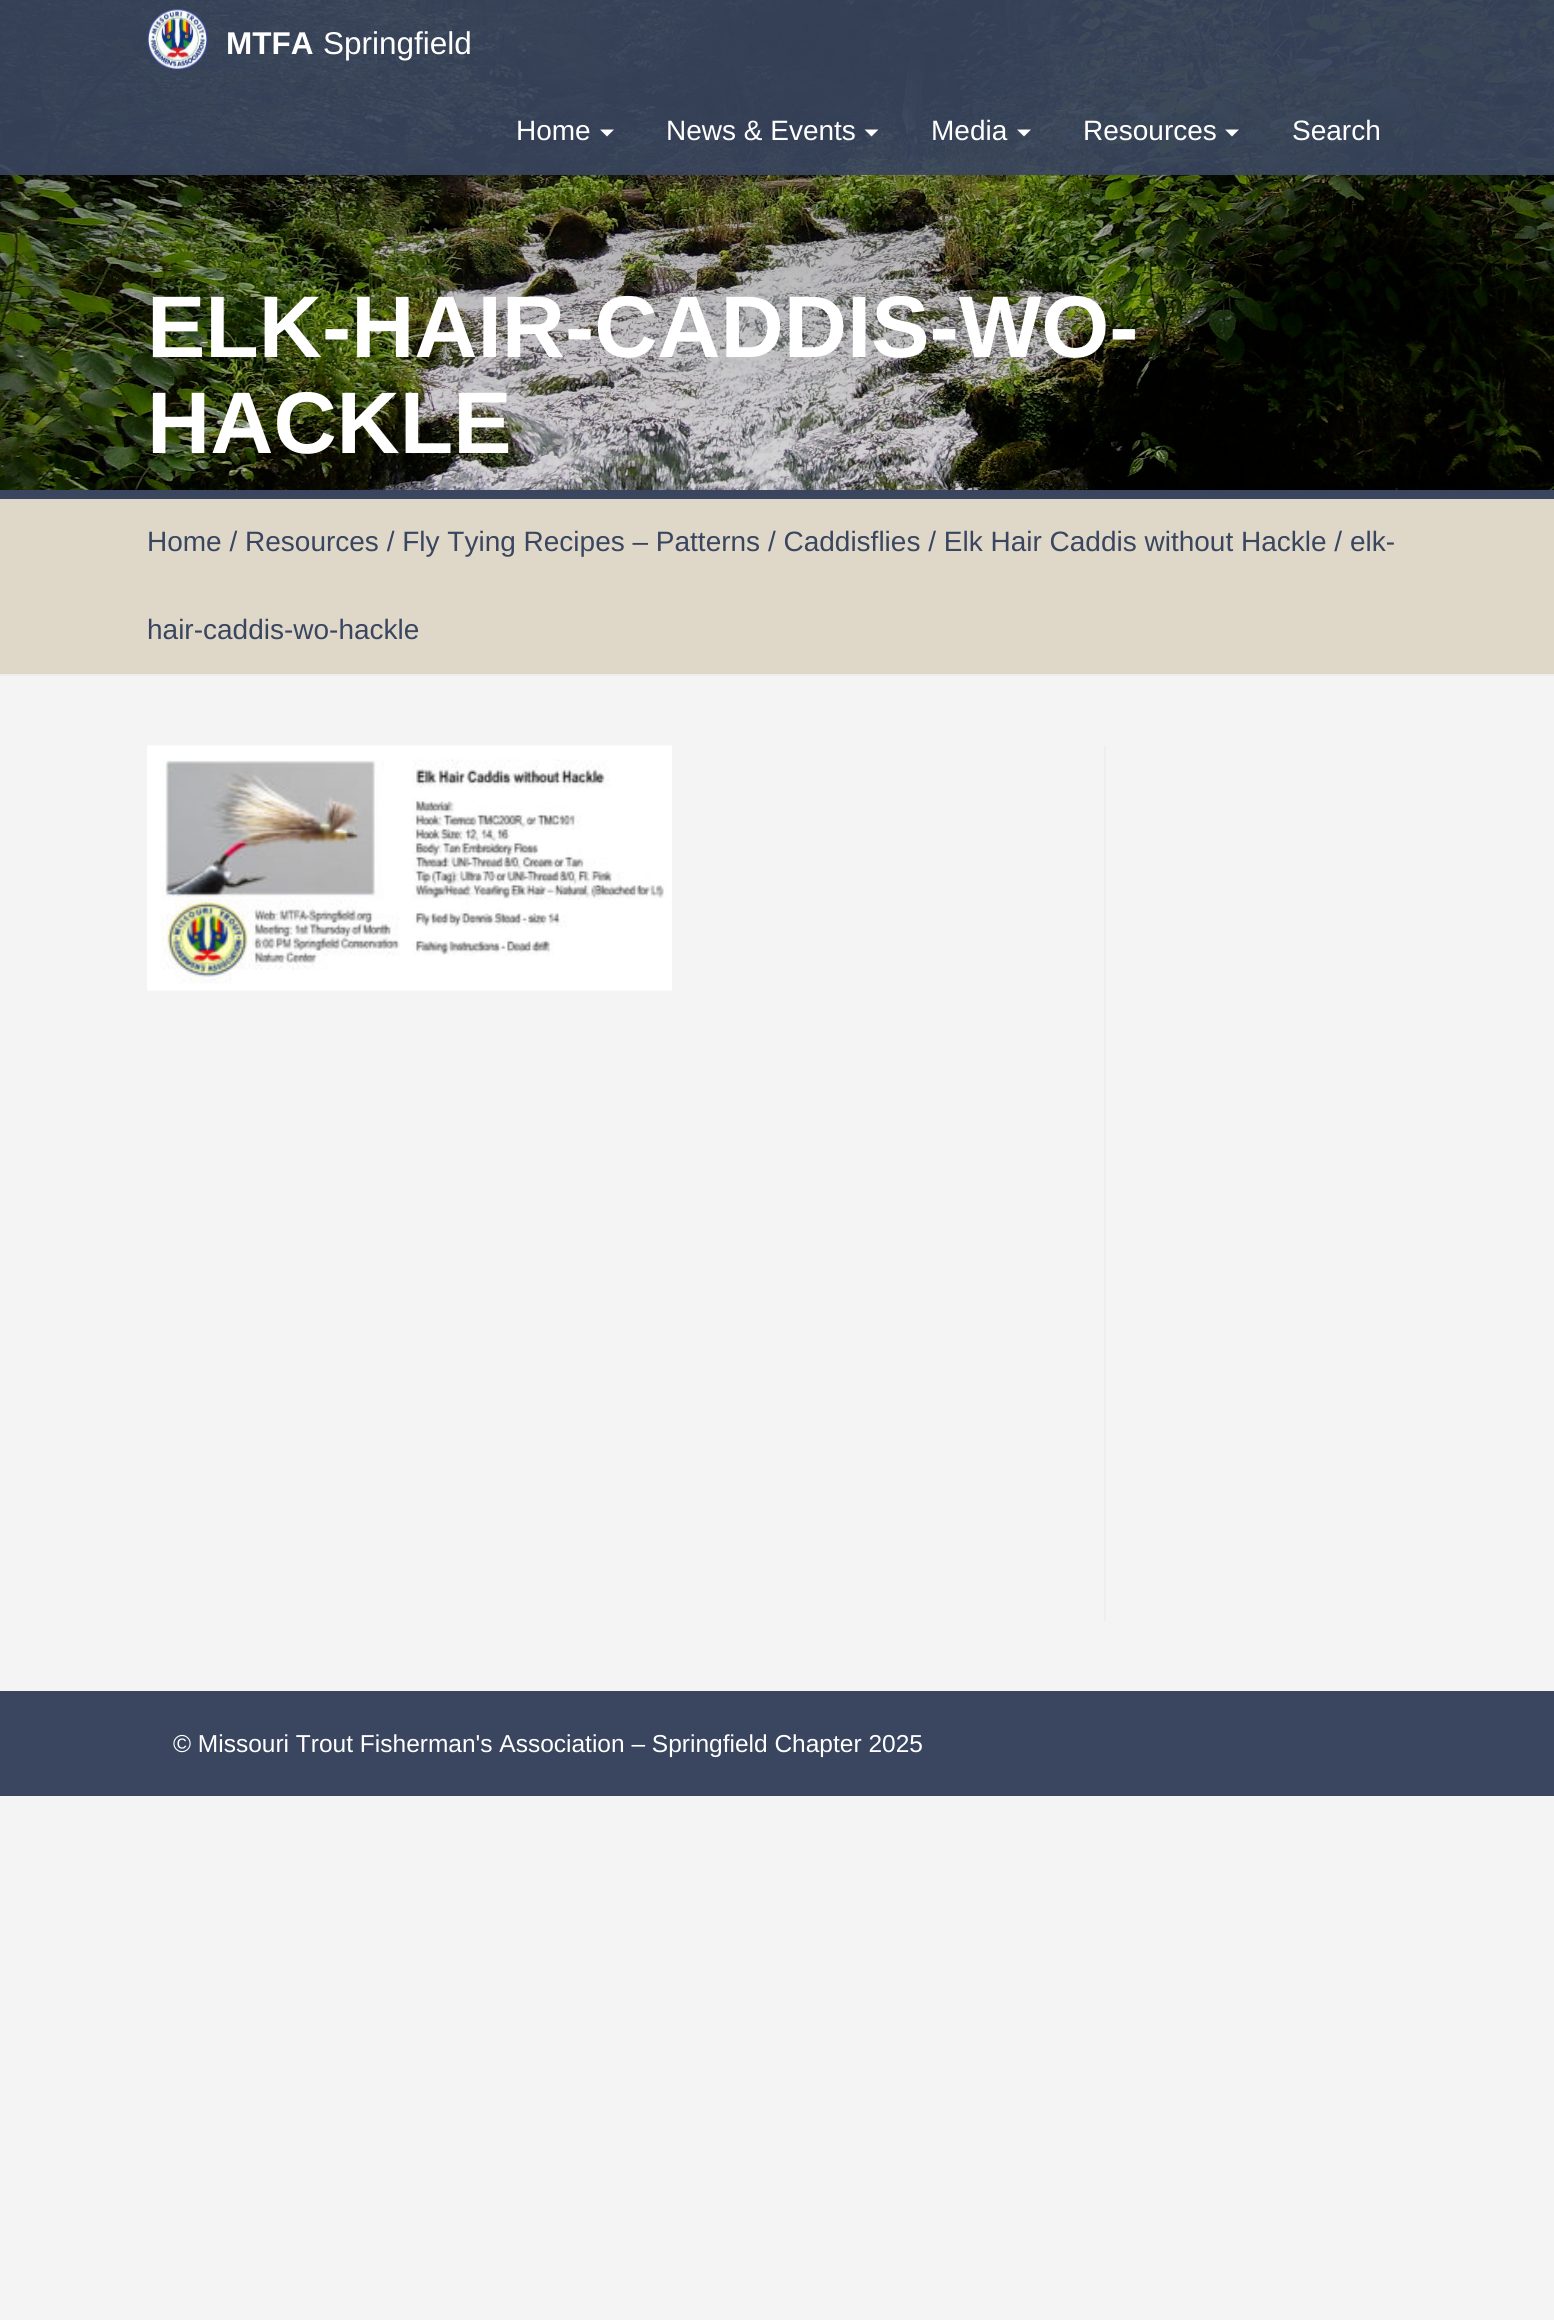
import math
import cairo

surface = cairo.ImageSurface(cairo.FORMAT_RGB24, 1554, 2320)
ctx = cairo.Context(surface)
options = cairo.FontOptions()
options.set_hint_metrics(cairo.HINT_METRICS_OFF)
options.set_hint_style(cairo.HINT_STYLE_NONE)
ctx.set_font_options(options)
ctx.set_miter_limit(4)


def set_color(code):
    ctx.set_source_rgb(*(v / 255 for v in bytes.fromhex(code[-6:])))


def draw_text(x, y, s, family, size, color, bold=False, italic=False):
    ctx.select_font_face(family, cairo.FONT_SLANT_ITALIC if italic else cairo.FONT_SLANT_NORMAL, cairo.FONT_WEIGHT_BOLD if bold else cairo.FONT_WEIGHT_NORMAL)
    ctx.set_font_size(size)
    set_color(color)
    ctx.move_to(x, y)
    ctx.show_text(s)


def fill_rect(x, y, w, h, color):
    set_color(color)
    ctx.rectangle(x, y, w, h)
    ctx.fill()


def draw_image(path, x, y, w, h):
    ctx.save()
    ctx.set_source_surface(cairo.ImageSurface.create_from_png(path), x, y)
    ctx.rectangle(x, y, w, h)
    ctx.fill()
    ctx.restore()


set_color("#f4f4f4")
ctx.paint()
draw_image("assets/img2.png", 0, 0, 1554, 490)
ctx.set_source_rgba(0.227, 0.275, 0.376, 0.9)
ctx.rectangle(0, 0, 1554, 175)
ctx.fill()
draw_image("assets/img1.png", 147, 8, 61, 62)
draw_text(226, 54, "MTFA", "Liberation Sans", 31.5, "#ffffff", bold=True)
draw_text(323, 54, "Springfield", "Liberation Sans", 31.5, "#ffffff")
draw_text(516, 140, "Home", "Liberation Sans", 28, "#ffffff")
ctx.new_path()
ctx.move_to(600, 129.5)
ctx.line_to(614, 129.5)
ctx.line_to(607, 136.5)
ctx.close_path()
ctx.fill()
draw_text(666, 140, "News & Events", "Liberation Sans", 28, "#ffffff")
ctx.new_path()
ctx.move_to(864.5, 129.5)
ctx.line_to(878.5, 129.5)
ctx.line_to(871.5, 136.5)
ctx.close_path()
ctx.fill()
draw_text(931, 140, "Media", "Liberation Sans", 28, "#ffffff")
ctx.new_path()
ctx.move_to(1017, 129.5)
ctx.line_to(1031, 129.5)
ctx.line_to(1024, 136.5)
ctx.close_path()
ctx.fill()
draw_text(1083, 140, "Resources", "Liberation Sans", 28, "#ffffff")
ctx.new_path()
ctx.move_to(1225, 129.5)
ctx.line_to(1239, 129.5)
ctx.line_to(1232, 136.5)
ctx.close_path()
ctx.fill()
draw_text(1292, 140, "Search", "Liberation Sans", 28, "#ffffff")
draw_text(147, 357, "ELK-HAIR-CADDIS-WO-", "Liberation Sans", 87.5, "#ffffff", bold=True)
draw_text(147, 453, "HACKLE", "Liberation Sans", 87.5, "#ffffff", bold=True)
fill_rect(0, 499, 1554, 175, "#dfd8c8")
fill_rect(0, 490, 1554, 9, "#3a4660")
fill_rect(0, 674, 1554, 2, "#eeeeee")
draw_text(147, 551, "Home / Resources / Fly Tying Recipes – Patterns / Caddisflies / Elk Hair Caddis without Hackle / elk-", "Liberation Sans", 28, "#3a4660")
draw_text(147, 639, "hair-caddis-wo-hackle", "Liberation Sans", 28, "#3a4660")
fill_rect(1104, 746, 2, 875, "#eeeeee")
draw_image("assets/img3.png", 147, 745, 525, 246)
fill_rect(0, 1691, 1554, 105, "#3a4660")
draw_text(173, 1752, "© Missouri Trout Fisherman's Association – Springfield Chapter 2025", "Liberation Sans", 24.5, "#ffffff")
surface.write_to_png("output.png")
